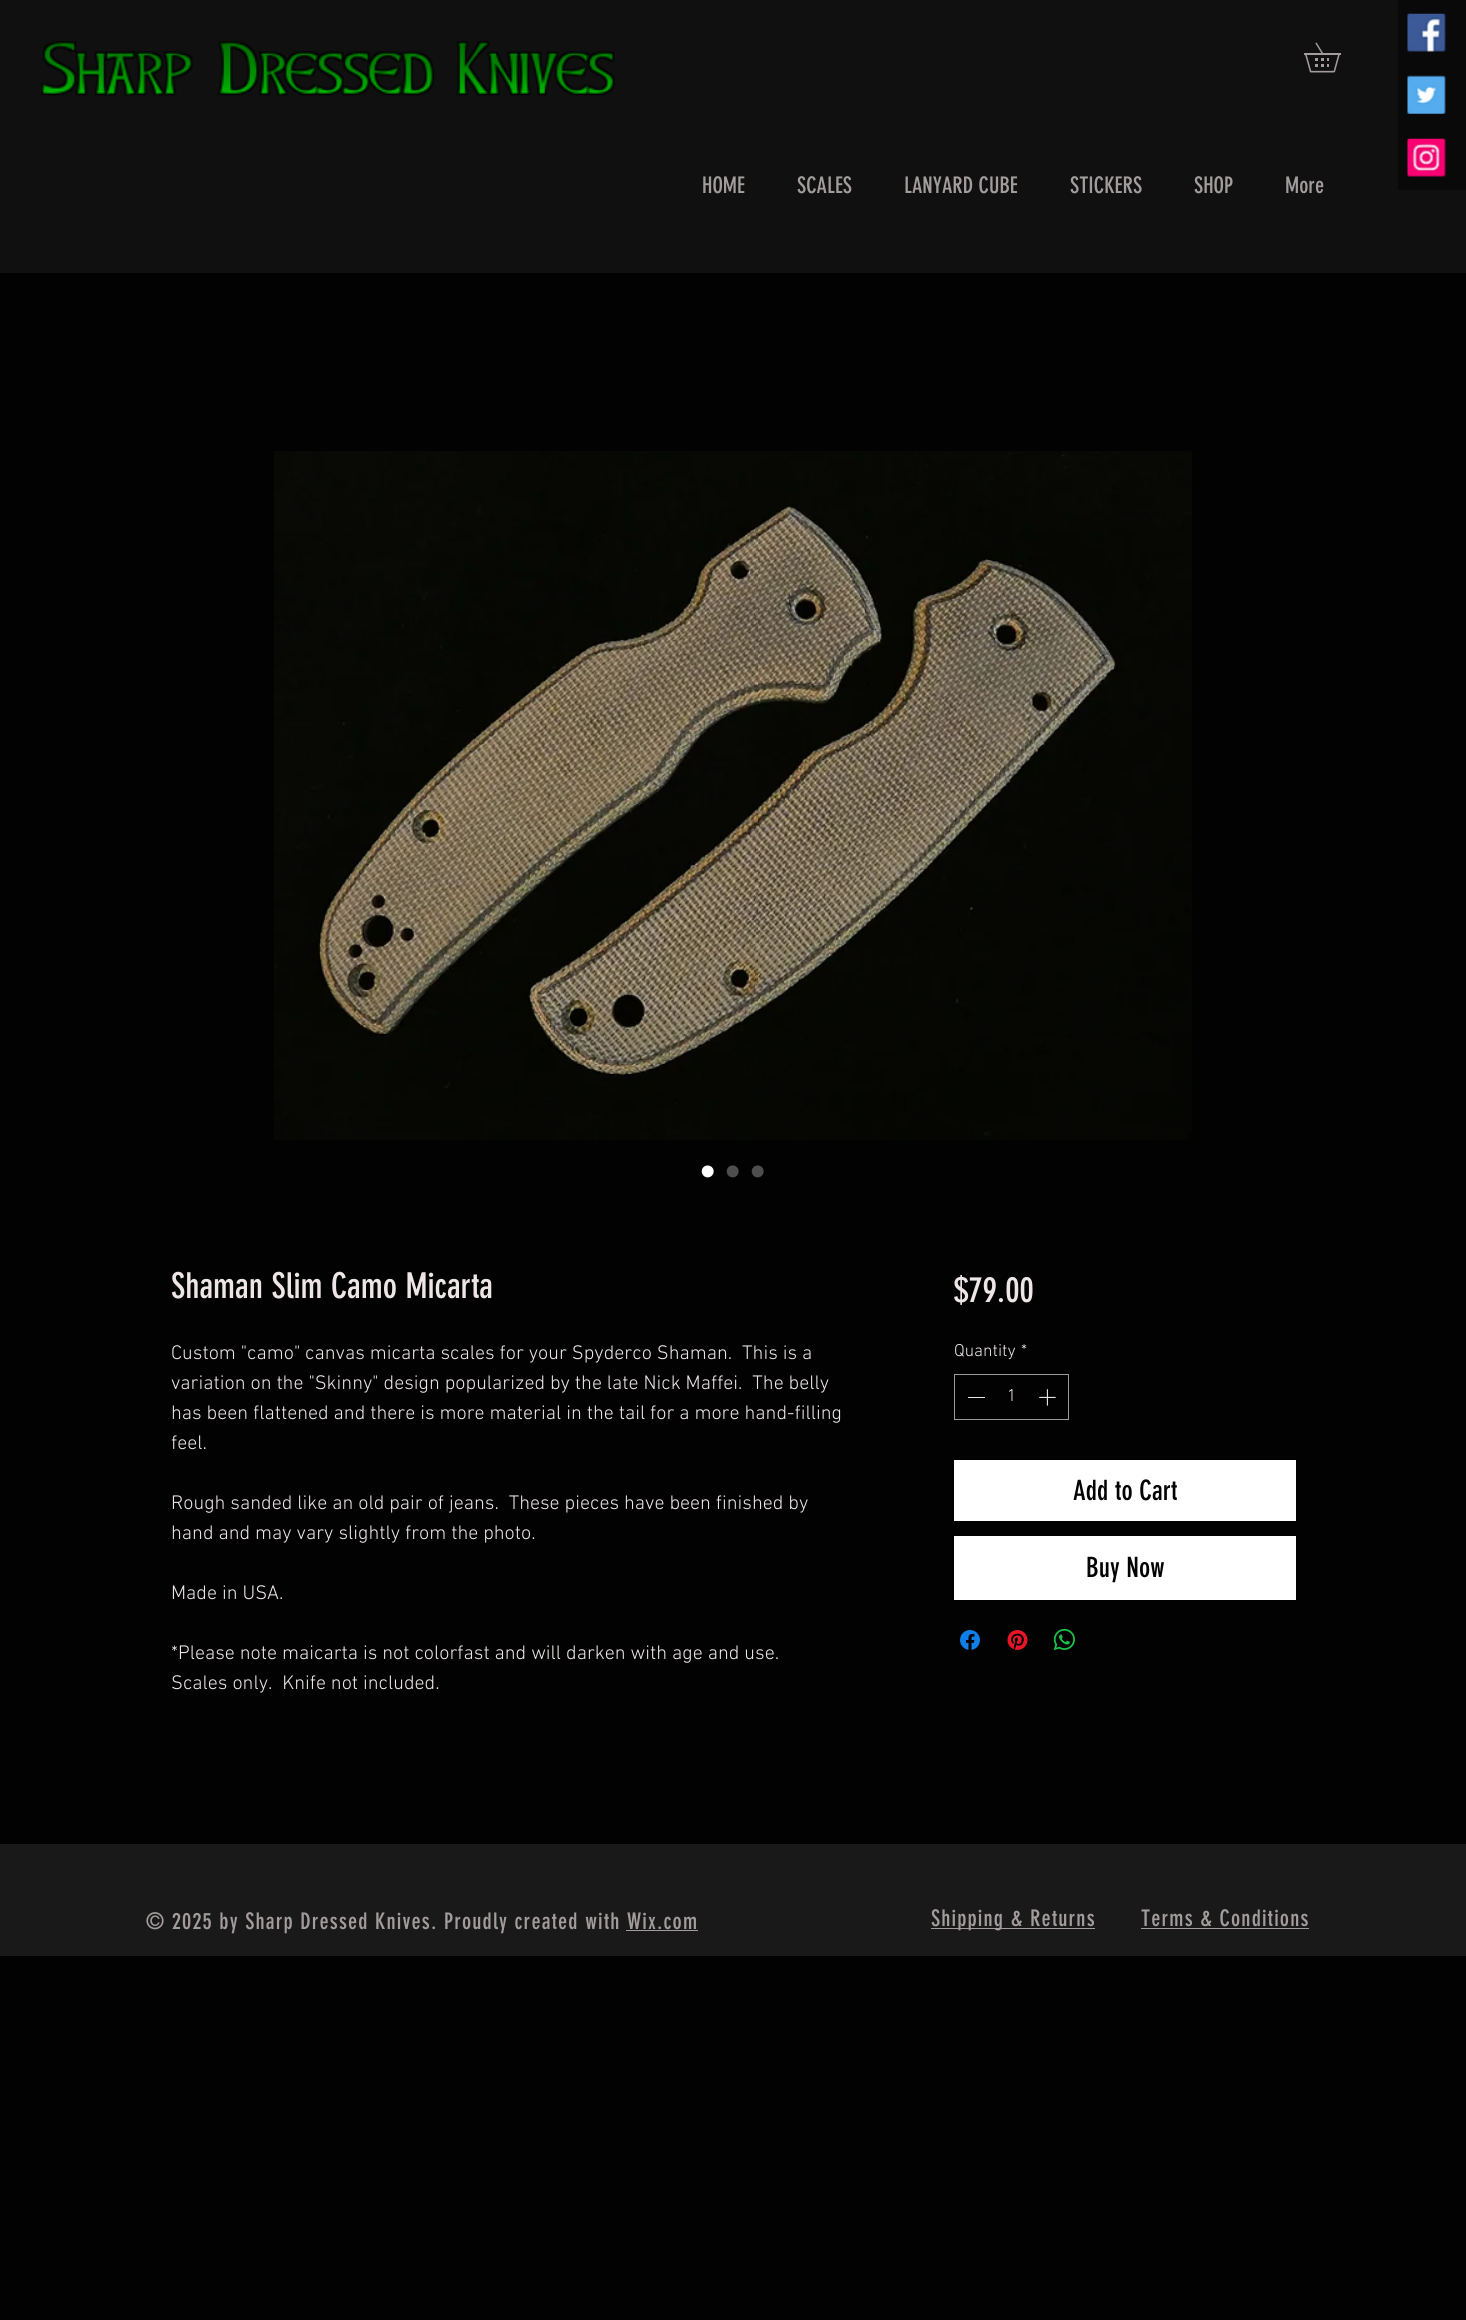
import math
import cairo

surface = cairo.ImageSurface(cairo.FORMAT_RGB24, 1466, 2320)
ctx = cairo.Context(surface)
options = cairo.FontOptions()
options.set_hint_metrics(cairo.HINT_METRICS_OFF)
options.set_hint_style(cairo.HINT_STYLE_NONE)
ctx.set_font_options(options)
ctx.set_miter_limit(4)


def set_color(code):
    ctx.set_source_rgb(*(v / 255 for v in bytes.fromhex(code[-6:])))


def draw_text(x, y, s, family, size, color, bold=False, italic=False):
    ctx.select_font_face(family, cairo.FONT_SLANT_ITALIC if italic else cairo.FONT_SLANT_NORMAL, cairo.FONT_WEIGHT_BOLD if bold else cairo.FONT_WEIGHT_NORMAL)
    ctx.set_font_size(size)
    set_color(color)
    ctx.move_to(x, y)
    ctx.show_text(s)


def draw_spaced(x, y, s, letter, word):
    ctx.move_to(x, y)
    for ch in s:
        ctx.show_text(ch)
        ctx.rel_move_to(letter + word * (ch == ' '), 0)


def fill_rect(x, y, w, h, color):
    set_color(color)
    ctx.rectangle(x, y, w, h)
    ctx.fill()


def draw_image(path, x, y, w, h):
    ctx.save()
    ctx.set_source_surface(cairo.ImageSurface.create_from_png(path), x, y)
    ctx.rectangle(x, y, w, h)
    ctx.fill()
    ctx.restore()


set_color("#020202")
ctx.paint()
fill_rect(0, 0, 1466, 273, "#101010")
draw_image("assets/img1.png", 41, 41, 574, 55)
draw_image("assets/img2.png", 1304, 42, 37, 31)
fill_rect(1398, 0, 68, 190, "#090909")
draw_image("assets/img3.png", 1407, 13, 39, 39)
draw_image("assets/img4.png", 1407, 75, 39, 39)
draw_image("assets/img5.png", 1407, 138, 39, 39)
draw_text(702, 193, "HOME", "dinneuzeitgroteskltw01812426", 22.5, "#a29c9c")
draw_text(797, 193, "SCALES", "dinneuzeitgroteskltw01812426", 22.5, "#a29c9c")
draw_text(904, 193, "LANYARD CUBE", "dinneuzeitgroteskltw01812426", 22.5, "#a29c9c")
draw_text(1070, 193, "STICKERS", "dinneuzeitgroteskltw01812426", 22.5, "#a29c9c")
draw_text(1194, 193, "SHOP", "dinneuzeitgroteskltw01812426", 22.5, "#a29c9c")
draw_text(1285, 193, "More", "dinneuzeitgroteskltw01812426", 22.5, "#a29c9c")
draw_image("assets/img6.png", 274, 451, 918, 689)
draw_text(700, 1186, "•", "Liberation Sans", 44, "#ffffff")
draw_text(725, 1186, "•", "Liberation Sans", 44, "#4e4e4e")
draw_text(750, 1186, "•", "Liberation Sans", 44, "#4e4e4e")
draw_text(171, 1298, "Shaman Slim Camo Micarta", "dinneuzeitgroteskltw01812426", 35, "#eee6e6")
draw_text(171, 1359, "Custom \"camo\" canvas micarta scales for your Spyderco Shaman.  This is a", "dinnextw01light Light", 20, "#eee6e6")
draw_text(171, 1389, "variation on the \"Skinny\" design popularized by the late Nick Maffei.  The belly", "dinnextw01light Light", 20, "#eee6e6")
draw_text(171, 1419, "has been flattened and there is more material in the tail for a more hand-filling", "dinnextw01light Light", 20, "#eee6e6")
draw_text(171, 1449, "feel.", "dinnextw01light Light", 20, "#eee6e6")
draw_text(171, 1509, "Rough sanded like an old pair of jeans.  These pieces have been finished by", "dinnextw01light Light", 20, "#eee6e6")
draw_text(171, 1539, "hand and may vary slightly from the photo.", "dinnextw01light Light", 20, "#eee6e6")
draw_text(171, 1599, "Made in USA.", "dinnextw01light Light", 20, "#eee6e6")
draw_text(171, 1659, "*Please note maicarta is not colorfast and will darken with age and use.", "dinnextw01light Light", 20, "#eee6e6")
draw_text(171, 1689, "Scales only.  Knife not included.", "dinnextw01light Light", 20, "#eee6e6")
draw_text(954, 1302, "$79.00", "dinneuzeitgroteskltw01812426", 35, "#eee6e6")
draw_text(954, 1356, "Quantity", "dinnextw01light Light", 17.5, "#eee6e6")
draw_text(1021, 1356, "*", "dinnextw01light Light", 17.5, "#eee6e6")
ctx.rectangle(954.5, 1374.5, 114, 45)
set_color("#9a9a9a")
ctx.set_line_width(1)
ctx.stroke()
fill_rect(968, 1397, 17, 1, "#eee6e6")
draw_text(1007, 1401, "1", "dinnextw01light Light", 17.5, "#eee6e6")
draw_image("assets/img7.png", 1039, 1389, 17, 17)
fill_rect(954, 1460, 342, 61, "#ffffff")
draw_text(1073, 1500, "Add to Cart", "dinneuzeitgroteskltw01812426", 27.5, "#020202")
fill_rect(954, 1536, 342, 64, "#ffffff")
draw_text(1086, 1577, "Buy Now", "dinneuzeitgroteskltw01812426", 27.5, "#020202")
draw_image("assets/img8.png", 960, 1630, 20, 20)
draw_image("assets/img9.png", 1007, 1630, 21, 20)
draw_image("assets/img10.png", 1053, 1628, 22, 22)
fill_rect(0, 1844, 1466, 112, "#1a1919")
ctx.set_font_size(22.5)
set_color("#a29c9c")
draw_spaced(146, 1929, "© 2025 by Sharp Dressed Knives. Proudly created with Wix.com", 1.12, 0)
fill_rect(626, 1930, 72, 1, "#a29c9c")
fill_rect(931, 1928, 164, 1, "#a29c9c")
draw_spaced(931, 1926, "Shipping & Returns", 1.12, 0)
draw_spaced(1141, 1926, "Terms & Conditions", 1.12, 0)
fill_rect(1141, 1928, 168, 1, "#a29c9c")
surface.write_to_png("output.png")
